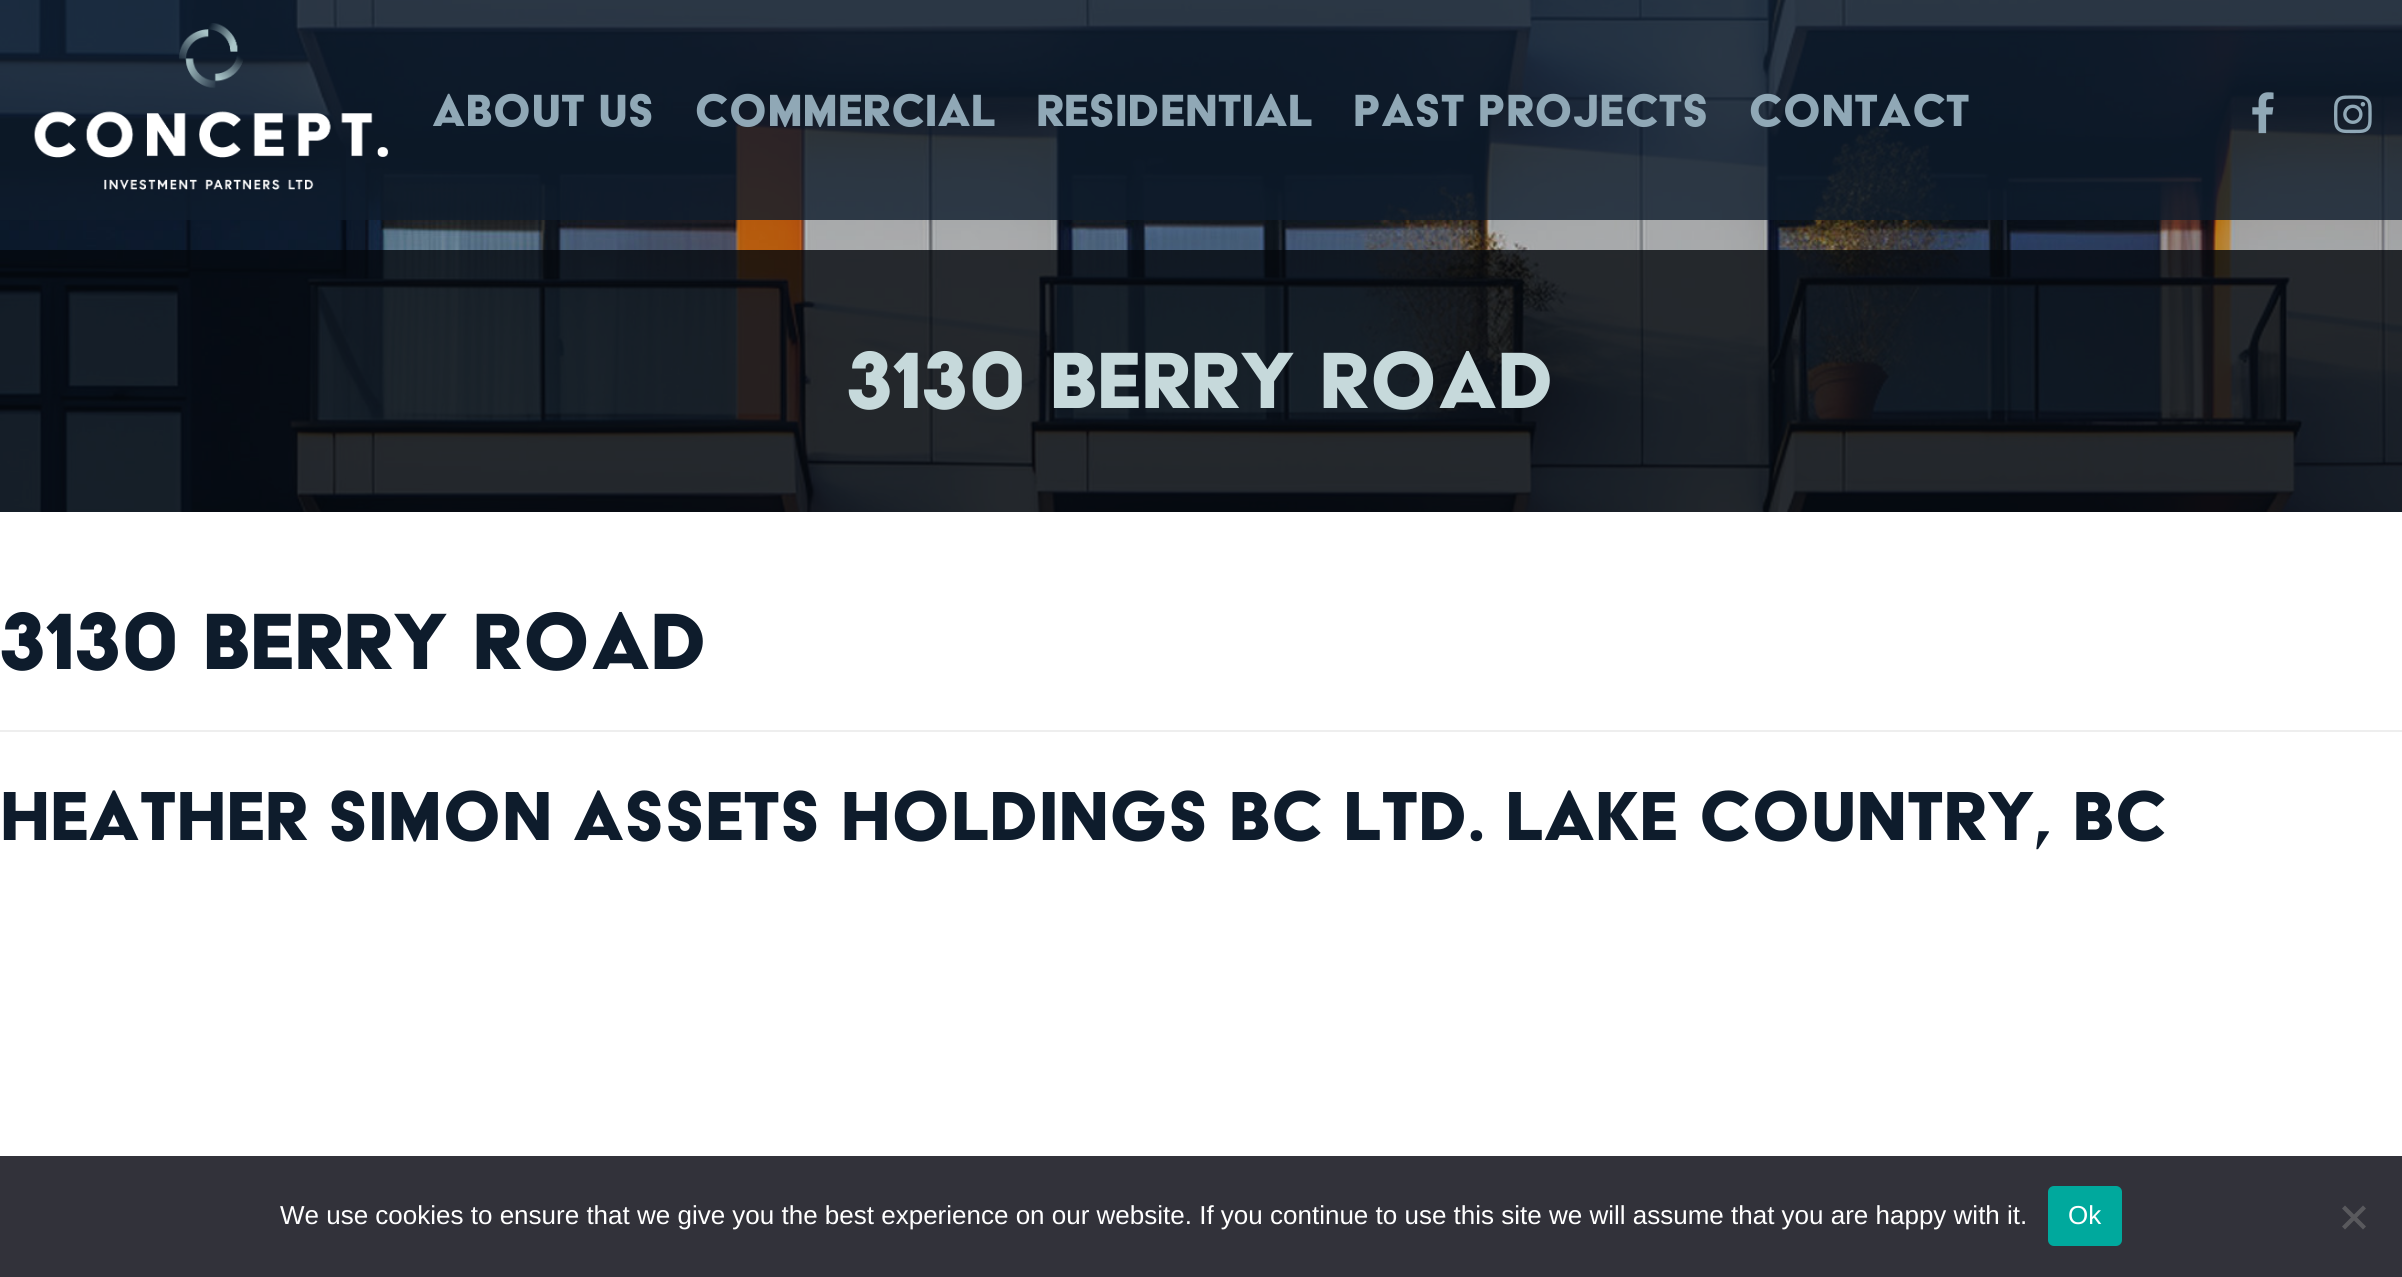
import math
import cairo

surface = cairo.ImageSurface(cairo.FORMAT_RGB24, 2402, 1277)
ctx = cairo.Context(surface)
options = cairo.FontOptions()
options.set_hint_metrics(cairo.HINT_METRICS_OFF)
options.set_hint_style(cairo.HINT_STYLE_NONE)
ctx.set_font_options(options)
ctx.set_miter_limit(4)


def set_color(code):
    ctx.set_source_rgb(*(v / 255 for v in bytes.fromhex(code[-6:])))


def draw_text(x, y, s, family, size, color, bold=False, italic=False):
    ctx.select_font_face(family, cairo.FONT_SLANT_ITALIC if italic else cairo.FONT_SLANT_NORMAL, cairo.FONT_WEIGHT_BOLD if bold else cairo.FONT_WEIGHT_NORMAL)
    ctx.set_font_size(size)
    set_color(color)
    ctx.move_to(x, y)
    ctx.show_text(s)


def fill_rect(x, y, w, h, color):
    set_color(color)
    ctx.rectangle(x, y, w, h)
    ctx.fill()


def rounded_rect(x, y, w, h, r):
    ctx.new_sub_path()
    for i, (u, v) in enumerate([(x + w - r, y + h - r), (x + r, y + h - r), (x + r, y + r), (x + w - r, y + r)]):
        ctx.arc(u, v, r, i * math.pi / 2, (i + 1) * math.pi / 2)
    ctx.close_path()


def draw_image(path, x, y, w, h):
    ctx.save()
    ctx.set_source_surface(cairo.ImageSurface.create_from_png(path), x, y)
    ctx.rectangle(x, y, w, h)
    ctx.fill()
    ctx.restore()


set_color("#ffffff")
ctx.paint()
draw_image("assets/img1.png", 0, 0, 2402, 512)
ctx.set_source_rgba(0.055, 0.11, 0.173, 0.8)
ctx.rectangle(0, 0, 2402, 220)
ctx.fill()
draw_image("assets/img2.png", 34, 23, 355, 167)
draw_text(432, 126, "ABOUT US", "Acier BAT", 52, "#90a8b6")
draw_text(694, 126, "COMMERCIAL", "Acier BAT", 52, "#90a8b6")
draw_text(1036, 126, "RESIDENTIAL", "Acier BAT", 52, "#90a8b6")
draw_text(1353, 126, "PAST PROJECTS", "Acier BAT", 52, "#90a8b6")
draw_text(1748, 126, "CONTACT", "Acier BAT", 52, "#90a8b6")
draw_image("assets/img3.png", 2252, 92, 22, 42)
draw_image("assets/img4.png", 2334, 95, 38, 39)
ctx.set_source_rgba(0.016, 0.031, 0.051, 0.8)
ctx.rectangle(0, 250, 2402, 262)
ctx.fill()
draw_text(847, 408, "3130 Berry Road", "Acier BAT", 92, "#c6d9db")
fill_rect(0, 730, 2402, 2, "#eeeeee")
draw_text(0, 669, "3130 Berry Road", "Acier BAT", 92, "#0e1c2c")
draw_text(0, 840, "Heather Simon Assets Holdings BC Ltd. Lake Country, BC", "Acier BAT", 80, "#0e1c2c")
fill_rect(0, 1156, 2402, 121, "#32323a")
draw_text(280, 1224, "We use cookies to ensure that we give you the best experience on our website. If you continue to use this site we will assume that you are happy with it.", "Liberation Sans", 26, "#ffffff")
set_color("#00a99d")
rounded_rect(2048, 1186, 74, 60, 6)
ctx.fill()
draw_text(2068, 1224, "Ok", "Liberation Sans", 26, "#ffffff")
set_color("#59595d")
ctx.new_path()
ctx.move_to(2363, 1205.5)
ctx.line_to(2366, 1208.5)
ctx.line_to(2345, 1229.5)
ctx.line_to(2342, 1226.5)
ctx.close_path()
ctx.fill()
ctx.new_path()
ctx.move_to(2342, 1208.5)
ctx.line_to(2345, 1205.5)
ctx.line_to(2366, 1226.5)
ctx.line_to(2363, 1229.5)
ctx.close_path()
ctx.fill()
surface.write_to_png("output.png")
